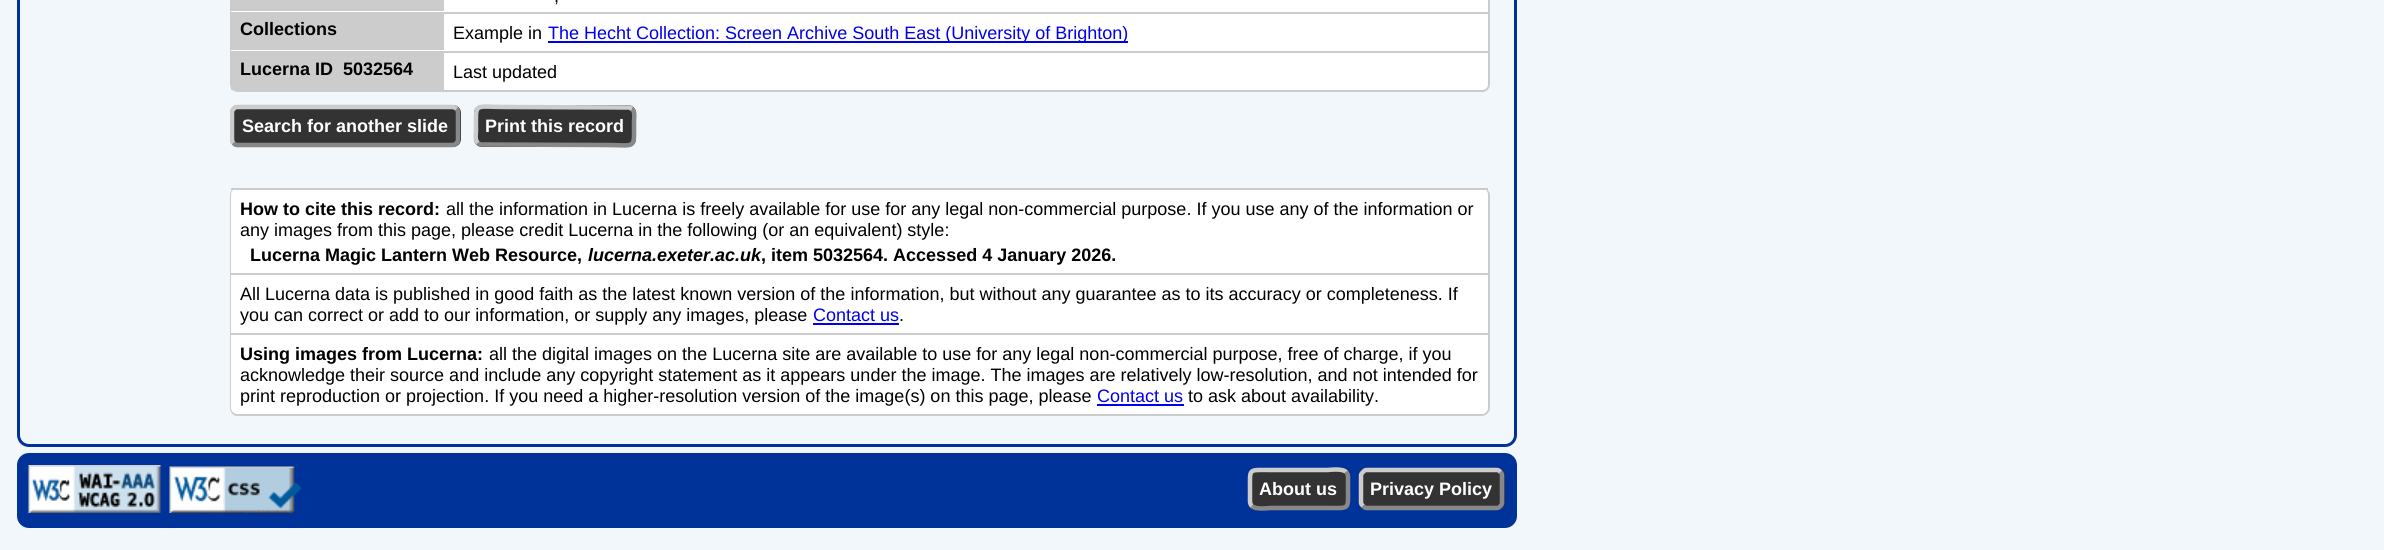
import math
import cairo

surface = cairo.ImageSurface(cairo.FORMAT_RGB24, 2384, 550)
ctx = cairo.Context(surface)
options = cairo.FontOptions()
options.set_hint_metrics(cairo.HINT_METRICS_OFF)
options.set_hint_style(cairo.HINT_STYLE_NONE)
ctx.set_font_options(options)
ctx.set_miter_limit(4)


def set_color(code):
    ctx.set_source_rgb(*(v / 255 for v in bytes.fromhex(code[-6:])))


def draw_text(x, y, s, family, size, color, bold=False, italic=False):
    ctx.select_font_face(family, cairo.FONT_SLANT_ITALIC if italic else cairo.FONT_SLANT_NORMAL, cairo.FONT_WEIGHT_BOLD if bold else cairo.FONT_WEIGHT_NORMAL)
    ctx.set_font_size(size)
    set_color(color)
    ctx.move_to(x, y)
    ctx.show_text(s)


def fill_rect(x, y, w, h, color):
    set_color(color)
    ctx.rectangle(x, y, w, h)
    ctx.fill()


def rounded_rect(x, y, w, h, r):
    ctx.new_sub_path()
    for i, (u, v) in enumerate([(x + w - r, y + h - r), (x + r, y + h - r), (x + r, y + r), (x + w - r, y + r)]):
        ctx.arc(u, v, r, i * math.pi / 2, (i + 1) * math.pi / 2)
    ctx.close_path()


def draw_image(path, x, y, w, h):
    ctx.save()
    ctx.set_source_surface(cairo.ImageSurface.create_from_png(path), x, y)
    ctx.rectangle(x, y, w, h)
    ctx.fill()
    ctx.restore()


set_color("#f1f7fb")
ctx.paint()
rounded_rect(18.5, -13.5, 1497, 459, 10.5)
set_color("#003399")
ctx.set_line_width(3)
ctx.stroke()
fill_rect(444, 0, 1044, 51, "#ffffff")
fill_rect(1488, 0, 2, 51, "#cccccc")
fill_rect(230, 0, 1, 51, "#cccccc")
fill_rect(231, 0, 213, 11, "#cccccc")
fill_rect(231, 11, 213, 1, "#ffffff")
draw_text(554, 2, ",", "Liberation Sans", 18, "#000000")
fill_rect(231, 12, 213, 38, "#cccccc")
fill_rect(231, 50, 213, 1, "#ffffff")
draw_text(240, 35, "Collections", "Liberation Sans", 18, "#000000", bold=True)
fill_rect(444, 12, 1044, 2, "#cccccc")
draw_text(453, 39, "Example in", "Liberation Sans", 18, "#000000")
fill_rect(548, 41, 580, 2, "#0000ee")
draw_text(548, 39, "The Hecht Collection: Screen Archive South East (University of Brighton)", "Liberation Sans", 18, "#0000ee")
set_color("#ffffff")
ctx.new_path()
ctx.move_to(231, 52)
ctx.line_to(1489, 52)
ctx.line_to(1489, 84)
ctx.curve_to(1489, 88, 1486, 91, 1482, 91)
ctx.line_to(238, 91)
ctx.curve_to(234, 91, 231, 88, 231, 84)
ctx.close_path()
ctx.fill_preserve()
set_color("#cccccc")
ctx.set_line_width(2)
ctx.stroke()
fill_rect(231, 53, 213, 37, "#cccccc")
draw_text(240, 75, "Lucerna ID  5032564", "Liberation Sans", 18, "#000000", bold=True)
draw_text(453, 78, "Last updated", "Liberation Sans", 18, "#000000")
set_color("#333333")
rounded_rect(230, 105, 231, 42, 8)
ctx.fill()
ctx.new_path()
ctx.move_to(456.5, 109)
ctx.curve_to(457.5, 110, 458, 111, 458, 112.5)
ctx.line_to(458, 139.5)
ctx.curve_to(458, 141, 457.5, 142, 456.5, 143)
ctx.curve_to(455.5, 144, 454.5, 145, 453, 145)
ctx.line_to(237, 145)
ctx.curve_to(235.5, 145, 234.5, 144, 233.5, 143)
set_color("#888888")
ctx.set_line_width(4.5)
ctx.stroke()
ctx.save()
ctx.rectangle(230, 92, 1266, 75)
ctx.clip()
ctx.new_path()
ctx.move_to(233.5, 143)
ctx.curve_to(232.5, 142, 232, 141, 232, 139.5)
ctx.line_to(232, 112.5)
ctx.curve_to(232, 111, 232.5, 110, 233.5, 109)
ctx.curve_to(234.5, 108, 235.5, 107, 237, 107)
ctx.line_to(453, 107)
ctx.curve_to(454.5, 107, 455.5, 108, 456.5, 109)
set_color("#cccccc")
ctx.stroke()
ctx.restore()
draw_text(242, 132, "Search for another slide", "Liberation Sans", 18, "#ffffff", bold=True)
set_color("#333333")
rounded_rect(474, 105, 162, 42, 8)
ctx.fill()
ctx.new_path()
ctx.move_to(632, 109)
ctx.curve_to(635.5, 112, 634, 118, 634, 121.5)
ctx.curve_to(634, 150.5, 637, 145, 604, 145)
ctx.line_to(480.5, 144.5)
ctx.line_to(478, 143)
set_color("#888888")
ctx.stroke()
ctx.new_path()
ctx.move_to(478, 143)
ctx.curve_to(474.5, 140, 476, 134, 476, 130.5)
ctx.curve_to(476, 101.5, 473, 107, 506, 107)
ctx.line_to(629.5, 107.5)
ctx.line_to(632, 109)
set_color("#cccccc")
ctx.stroke()
draw_text(485, 132, "Print this record", "Liberation Sans", 18, "#ffffff", bold=True)
rounded_rect(230, 188, 1260, 228, 8)
ctx.fill()
set_color("#cccccc")
ctx.set_fill_rule(cairo.FILL_RULE_EVEN_ODD)
ctx.new_path()
ctx.move_to(237, 188)
ctx.line_to(1482, 188)
ctx.curve_to(1486, 188, 1490, 191, 1490, 195)
ctx.line_to(1490, 408)
ctx.curve_to(1490, 412, 1486, 416, 1482, 416)
ctx.line_to(237, 416)
ctx.curve_to(233, 416, 230, 412, 230, 408)
ctx.line_to(230, 195)
ctx.curve_to(230, 191, 233, 188, 237, 188)
ctx.close_path()
ctx.move_to(237, 188)
ctx.line_to(1482, 188)
ctx.curve_to(1485, 188, 1488, 191, 1488, 195)
ctx.line_to(1488, 408)
ctx.curve_to(1488, 411, 1485, 414, 1482, 414)
ctx.line_to(237, 414)
ctx.curve_to(234, 414, 231, 411, 231, 408)
ctx.line_to(231, 195)
ctx.curve_to(231, 191, 234, 188, 237, 188)
ctx.close_path()
ctx.fill()
fill_rect(231, 188, 1257, 2, "#cccccc")
draw_text(240, 215, "How to cite this record:", "Liberation Sans", 18, "#000000", bold=True)
draw_text(446, 215, "all the information in Lucerna is freely available for use for any legal non-commercial purpose. If you use any of the information or", "Liberation Sans", 18, "#000000")
draw_text(240, 236, "any images from this page, please credit Lucerna in the following (or an equivalent) style:", "Liberation Sans", 18, "#000000")
draw_text(250, 261, "Lucerna Magic Lantern Web Resource,", "Liberation Sans", 18, "#000000", bold=True)
draw_text(588, 261, "lucerna.exeter.ac.uk", "Liberation Sans", 18, "#000000", bold=True, italic=True)
draw_text(761, 261, ", item 5032564. Accessed 4 January 2026.", "Liberation Sans", 18, "#000000", bold=True)
fill_rect(231, 273, 1257, 2, "#cccccc")
draw_text(240, 300, "All Lucerna data is published in good faith as the latest known version of the information, but without any guarantee as to its accuracy or completeness. If", "Liberation Sans", 18, "#000000")
draw_text(240, 321, "you can correct or add to our information, or supply any images, please", "Liberation Sans", 18, "#000000")
draw_text(813, 321, "Contact us", "Liberation Sans", 18, "#0000ee")
fill_rect(813, 323, 86, 2, "#0000ee")
draw_text(899, 321, ".", "Liberation Sans", 18, "#000000")
fill_rect(231, 333, 1257, 2, "#cccccc")
draw_text(240, 360, "Using images from Lucerna:", "Liberation Sans", 18, "#000000", bold=True)
draw_text(489, 360, "all the digital images on the Lucerna site are available to use for any legal non-commercial purpose, free of charge, if you", "Liberation Sans", 18, "#000000")
draw_text(240, 381, "acknowledge their source and include any copyright statement as it appears under the image. The images are relatively low-resolution, and not intended for", "Liberation Sans", 18, "#000000")
draw_text(240, 402, "print reproduction or projection. If you need a higher-resolution version of the image(s) on this page, please", "Liberation Sans", 18, "#000000")
draw_text(1097, 402, "Contact us", "Liberation Sans", 18, "#0000ee")
fill_rect(1097, 404, 87, 2, "#0000ee")
draw_text(1188, 402, "to ask about availability.", "Liberation Sans", 18, "#000000")
set_color("#003399")
rounded_rect(18.5, 454.5, 1497, 72, 10.5)
ctx.fill_preserve()
ctx.set_line_width(3)
ctx.stroke()
draw_image("assets/img1.png", 28, 465, 133, 48)
draw_image("assets/img2.png", 169, 466, 133, 47)
set_color("#333333")
rounded_rect(1248, 468, 102, 42, 8)
ctx.fill()
ctx.new_path()
ctx.move_to(1346, 472)
ctx.curve_to(1348.5, 474, 1348, 477.5, 1348, 480)
ctx.line_to(1348, 489)
ctx.curve_to(1348, 510, 1350, 508, 1328, 508)
ctx.line_to(1270, 508)
ctx.curve_to(1270, 508, 1255.5, 510, 1252, 506)
set_color("#888888")
ctx.set_line_width(4.5)
ctx.stroke()
ctx.new_path()
ctx.move_to(1252, 506)
ctx.curve_to(1249.5, 504, 1250, 500.5, 1250, 498)
ctx.line_to(1250, 489)
ctx.curve_to(1250, 468, 1248, 470, 1270, 470)
ctx.line_to(1328, 470)
ctx.curve_to(1328, 470, 1342.5, 468, 1346, 472)
set_color("#cccccc")
ctx.stroke()
draw_text(1259, 495, "About us", "Liberation Sans", 18, "#ffffff", bold=True)
set_color("#333333")
rounded_rect(1359, 468, 146, 42, 8)
ctx.fill()
ctx.new_path()
ctx.move_to(1500.5, 472)
ctx.curve_to(1501.5, 473, 1502, 474, 1502, 475.5)
ctx.line_to(1502, 502.5)
ctx.curve_to(1502, 504, 1501.5, 505, 1500.5, 506)
ctx.curve_to(1499.5, 507, 1498.5, 508, 1497, 508)
ctx.line_to(1366.5, 508)
ctx.curve_to(1365, 508, 1364, 507, 1363, 506)
set_color("#888888")
ctx.stroke()
ctx.new_path()
ctx.move_to(1363, 506)
ctx.curve_to(1362, 505, 1361, 504, 1361, 502.5)
ctx.line_to(1361, 475.5)
ctx.curve_to(1361, 474, 1362, 473, 1363, 472)
ctx.curve_to(1364, 471, 1365, 470, 1366.5, 470)
ctx.line_to(1497, 470)
ctx.curve_to(1498.5, 470, 1499.5, 471, 1500.5, 472)
set_color("#cccccc")
ctx.stroke()
draw_text(1370, 495, "Privacy Policy", "Liberation Sans", 18, "#ffffff", bold=True)
surface.write_to_png("output.png")
